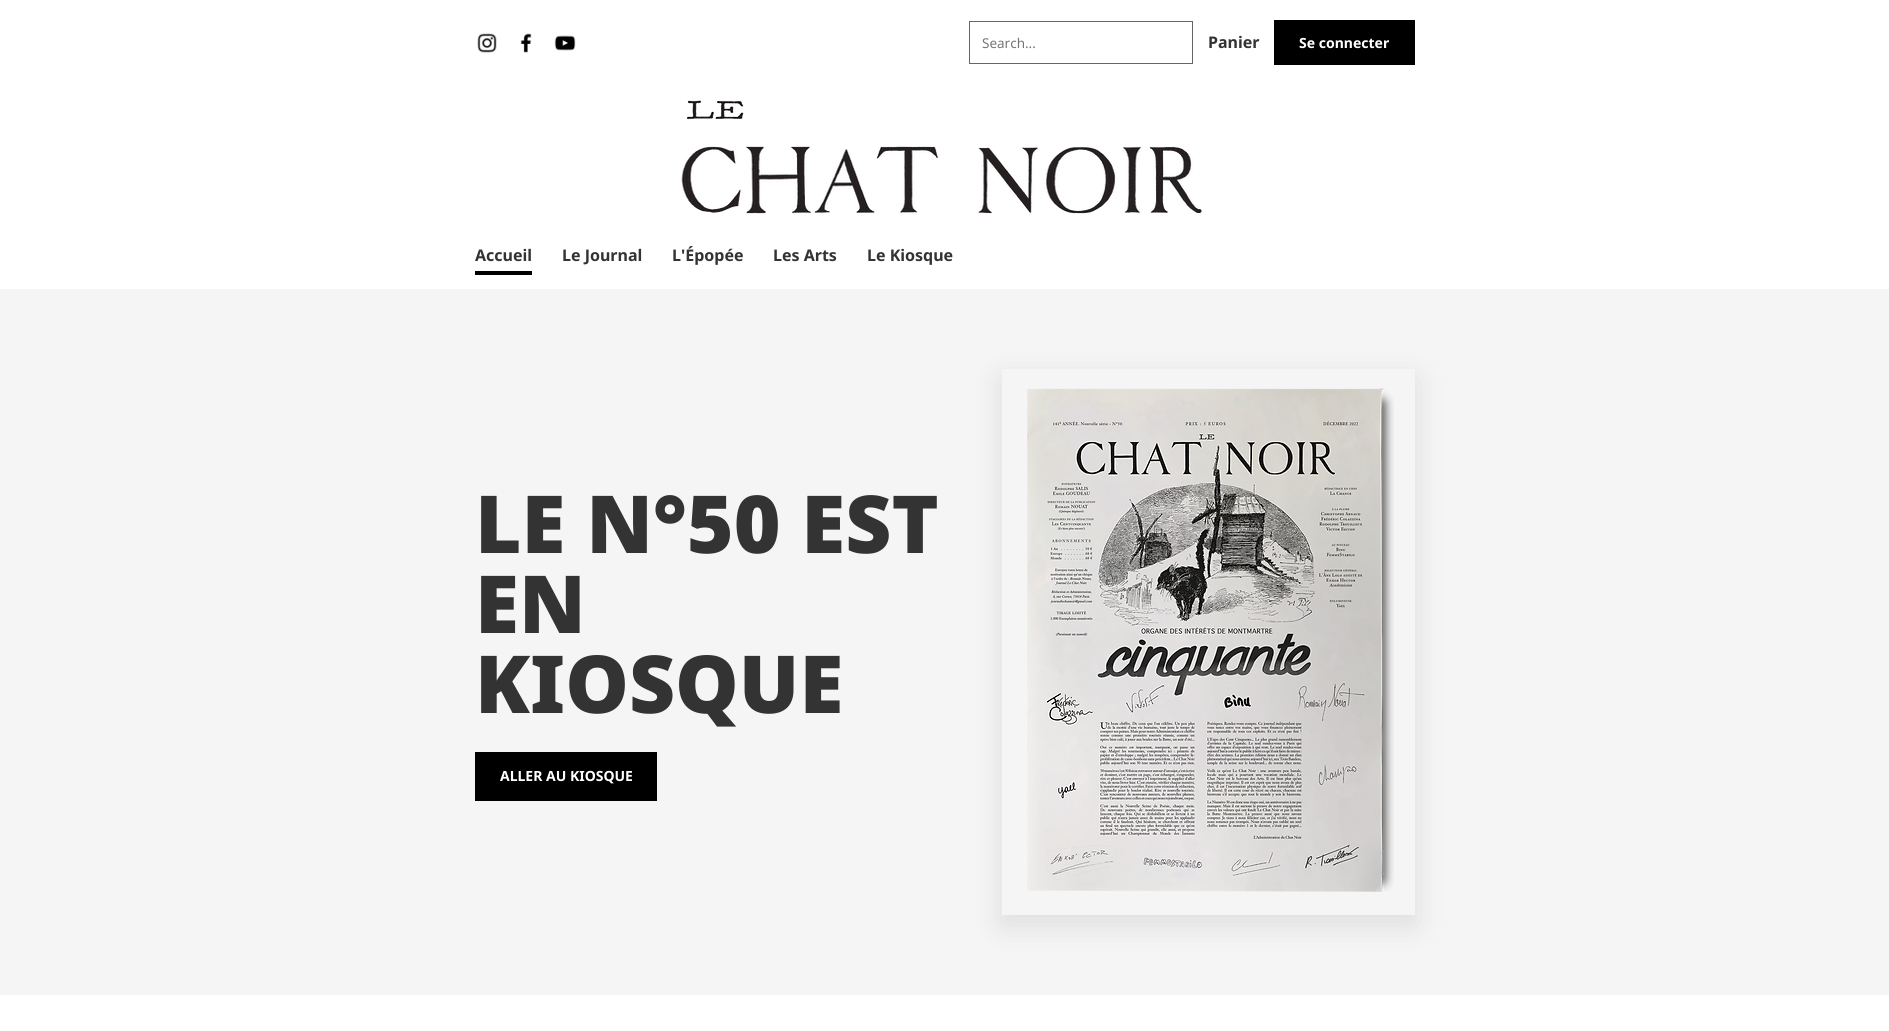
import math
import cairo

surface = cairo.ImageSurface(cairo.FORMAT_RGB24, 1889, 1031)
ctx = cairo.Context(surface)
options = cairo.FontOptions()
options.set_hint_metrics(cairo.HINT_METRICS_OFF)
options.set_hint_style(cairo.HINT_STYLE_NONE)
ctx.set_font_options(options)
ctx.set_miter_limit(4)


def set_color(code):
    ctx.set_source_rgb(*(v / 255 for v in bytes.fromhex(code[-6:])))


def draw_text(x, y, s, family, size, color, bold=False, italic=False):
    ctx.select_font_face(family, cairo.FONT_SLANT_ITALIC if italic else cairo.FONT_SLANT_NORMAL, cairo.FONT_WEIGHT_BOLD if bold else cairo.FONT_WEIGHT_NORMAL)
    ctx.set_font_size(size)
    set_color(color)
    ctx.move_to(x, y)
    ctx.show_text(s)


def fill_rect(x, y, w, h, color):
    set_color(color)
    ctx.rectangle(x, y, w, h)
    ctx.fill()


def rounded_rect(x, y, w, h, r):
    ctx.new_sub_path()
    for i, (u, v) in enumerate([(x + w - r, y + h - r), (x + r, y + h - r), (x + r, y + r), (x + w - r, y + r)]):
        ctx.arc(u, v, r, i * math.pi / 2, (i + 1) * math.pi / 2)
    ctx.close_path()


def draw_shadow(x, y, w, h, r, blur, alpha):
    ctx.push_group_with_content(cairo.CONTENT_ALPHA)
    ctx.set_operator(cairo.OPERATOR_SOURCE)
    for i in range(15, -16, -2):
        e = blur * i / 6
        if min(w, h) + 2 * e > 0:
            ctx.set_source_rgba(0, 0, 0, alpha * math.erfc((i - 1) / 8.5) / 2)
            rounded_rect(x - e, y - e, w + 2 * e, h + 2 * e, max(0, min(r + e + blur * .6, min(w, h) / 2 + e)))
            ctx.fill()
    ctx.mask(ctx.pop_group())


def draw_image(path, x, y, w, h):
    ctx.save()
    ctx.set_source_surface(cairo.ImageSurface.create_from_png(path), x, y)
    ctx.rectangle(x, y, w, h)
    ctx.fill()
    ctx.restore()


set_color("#ffffff")
ctx.paint()
draw_image("assets/img1.png", 477, 33, 20, 20)
draw_image("assets/img2.png", 520, 33, 12, 20)
draw_image("assets/img3.png", 554, 35, 22, 16)
ctx.rectangle(969.5, 21.5, 223, 42)
set_color("#666666")
ctx.set_line_width(1)
ctx.stroke()
draw_text(982, 48, "Search...", "Noto Sans", 13.5, "#757575")
draw_text(1208, 48, "Panier", "Noto Sans", 16, "#333333", bold=True)
fill_rect(1274, 20, 141, 45, "#000000")
draw_text(1299, 48, "Se connecter", "Noto Sans", 14, "#ffffff", bold=True)
draw_image("assets/img4.png", 686, 100, 58, 20)
draw_image("assets/img5.png", 681, 146, 521, 68)
draw_text(475, 261, "Accueil", "Noto Sans", 16, "#333333", bold=True)
fill_rect(475, 271, 57, 4, "#000000")
draw_text(562, 261, "Le Journal", "Noto Sans", 16, "#333333", bold=True)
draw_text(672, 261, "L'Épopée", "Noto Sans", 16, "#333333", bold=True)
draw_text(773, 261, "Les Arts", "Noto Sans", 16, "#333333", bold=True)
draw_text(867, 261, "Le Kiosque", "Noto Sans", 16, "#333333", bold=True)
fill_rect(0, 289, 1889, 706, "#f5f5f5")
draw_text(475, 553, "LE N°50 EST", "Noto Sans Black", 80, "#333333")
draw_text(475, 633, "EN", "Noto Sans Black", 80, "#333333")
draw_text(475, 713, "KIOSQUE", "Noto Sans Black", 80, "#333333")
fill_rect(475, 752, 182, 49, "#000000")
draw_text(500, 781, "ALLER AU KIOSQUE", "Noto Sans", 14, "#ffffff", bold=True)
ctx.save()
ctx.set_fill_rule(cairo.FILL_RULE_EVEN_ODD)
ctx.new_path()
ctx.move_to(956, 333)
ctx.line_to(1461, 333)
ctx.line_to(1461, 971)
ctx.line_to(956, 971)
ctx.close_path()
ctx.move_to(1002, 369)
ctx.line_to(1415, 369)
ctx.line_to(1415, 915)
ctx.line_to(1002, 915)
ctx.close_path()
ctx.clip()
set_color("#000000")
draw_shadow(1002, 379, 413, 546, 0, 15, 0.1)
ctx.restore()
draw_image("assets/img6.png", 1027, 388, 367, 504)
surface.write_to_png("output.png")
